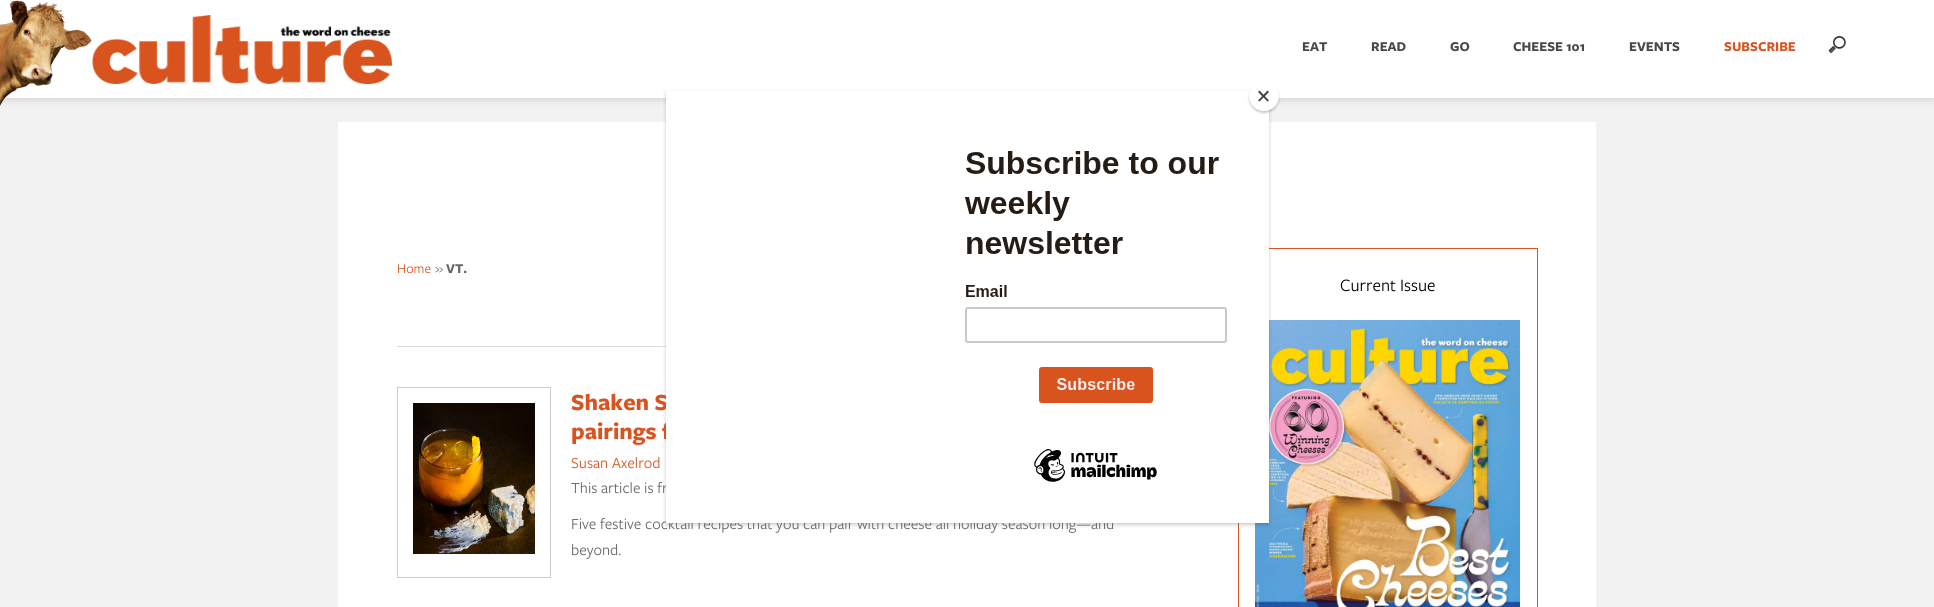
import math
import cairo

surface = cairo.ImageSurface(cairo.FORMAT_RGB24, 1934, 607)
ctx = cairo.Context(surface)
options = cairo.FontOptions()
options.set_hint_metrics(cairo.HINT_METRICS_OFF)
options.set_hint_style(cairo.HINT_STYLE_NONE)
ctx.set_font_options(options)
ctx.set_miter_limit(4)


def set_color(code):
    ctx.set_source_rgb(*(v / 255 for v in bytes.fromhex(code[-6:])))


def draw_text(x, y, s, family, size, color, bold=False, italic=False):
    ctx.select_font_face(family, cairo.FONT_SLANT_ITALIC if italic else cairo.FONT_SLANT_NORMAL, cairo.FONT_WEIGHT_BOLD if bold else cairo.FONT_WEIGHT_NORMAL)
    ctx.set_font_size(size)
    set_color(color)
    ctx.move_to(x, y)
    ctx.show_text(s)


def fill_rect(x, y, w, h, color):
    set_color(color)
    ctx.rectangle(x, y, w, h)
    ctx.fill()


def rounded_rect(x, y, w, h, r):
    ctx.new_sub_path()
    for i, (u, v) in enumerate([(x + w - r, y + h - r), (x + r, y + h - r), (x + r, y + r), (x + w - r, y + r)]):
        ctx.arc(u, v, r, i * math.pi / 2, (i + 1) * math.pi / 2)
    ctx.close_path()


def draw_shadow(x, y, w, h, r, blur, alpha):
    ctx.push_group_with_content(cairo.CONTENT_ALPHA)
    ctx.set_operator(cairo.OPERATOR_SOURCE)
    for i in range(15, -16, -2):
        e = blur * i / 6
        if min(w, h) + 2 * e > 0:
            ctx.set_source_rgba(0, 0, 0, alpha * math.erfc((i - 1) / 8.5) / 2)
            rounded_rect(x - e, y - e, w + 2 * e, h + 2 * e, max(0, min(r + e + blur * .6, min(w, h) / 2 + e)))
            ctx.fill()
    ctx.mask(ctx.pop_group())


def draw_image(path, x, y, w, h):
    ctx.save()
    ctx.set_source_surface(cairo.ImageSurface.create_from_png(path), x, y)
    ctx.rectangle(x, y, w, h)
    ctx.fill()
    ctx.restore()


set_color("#f2f2f2")
ctx.paint()
set_color("#cccccc")
draw_shadow(-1, 1, 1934, 98, 0, 4, 1)
fill_rect(0, 0, 1934, 98, "#ffffff")
draw_image("assets/img1.png", 0, 0, 92, 106)
draw_image("assets/img2.png", 92, 15, 300, 69)
draw_text(1302, 51, "EAT", "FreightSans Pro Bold", 14, "#484848", bold=True)
draw_text(1371, 51, "READ", "FreightSans Pro Bold", 14, "#484848", bold=True)
draw_text(1450, 51, "GO", "FreightSans Pro Bold", 14, "#484848", bold=True)
draw_text(1513, 51, "CHEESE 101", "FreightSans Pro Bold", 14, "#484848", bold=True)
draw_text(1629, 51, "EVENTS", "FreightSans Pro Bold", 14, "#484848", bold=True)
draw_text(1724, 51, "SUBSCRIBE", "FreightSans Pro Bold", 14, "#d9531e", bold=True)
draw_image("assets/img3.png", 1828, 36, 18, 18)
fill_rect(338, 122, 1258, 485, "#ffffff")
fill_rect(397, 346, 269, 1, "#dddddd")
ctx.rectangle(1238.5, 248.5, 299, 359)
set_color("#d85620")
ctx.set_line_width(1)
ctx.stroke()
draw_image("assets/img6.png", 1255, 320, 265, 287)
ctx.save()
ctx.set_fill_rule(cairo.FILL_RULE_EVEN_ODD)
ctx.new_path()
ctx.move_to(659, 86)
ctx.line_to(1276, 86)
ctx.line_to(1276, 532)
ctx.line_to(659, 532)
ctx.close_path()
ctx.move_to(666, 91)
ctx.line_to(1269, 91)
ctx.line_to(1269, 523)
ctx.line_to(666, 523)
ctx.close_path()
ctx.clip()
set_color("#000000")
draw_shadow(666, 93, 603, 432, 0, 2, 0.2)
ctx.restore()
draw_text(571, 410, "Shaken S", "FreightSans Pro Bold", 24, "#d9531e", bold=True)
draw_text(571, 439, "pairings f", "FreightSans Pro Bold", 24, "#d9531e", bold=True)
draw_text(571, 493, "This article is fr", "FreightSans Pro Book", 16, "#666666")
draw_text(571, 529, "Five festive cocktail recipes that you can pair with cheese all holiday season long—and", "FreightSans Pro Book", 16, "#666666")
draw_image("assets/img4.png", 666, 98, 603, 425)
set_color("#000000")
draw_shadow(1249, 83, 30, 30, 15, 1, 0.2)
set_color("#ffffff")
ctx.arc(1264, 96, 15, 0, 2 * math.pi)
ctx.fill()
set_color("#414141")
ctx.new_path()
ctx.move_to(1267.5, 90.5)
ctx.line_to(1269, 92)
ctx.line_to(1259.5, 101.5)
ctx.line_to(1258, 100.5)
ctx.close_path()
ctx.fill()
ctx.new_path()
ctx.move_to(1258, 92)
ctx.line_to(1259.5, 90.5)
ctx.line_to(1269, 100.5)
ctx.line_to(1267.5, 101.5)
ctx.close_path()
ctx.fill()
draw_text(397, 273, "Home", "FreightSans Pro Book", 14, "#d9531e")
draw_text(435, 273, "»", "FreightSans Pro Book", 14, "#666666")
draw_text(446, 273, "VT.", "FreightSans Pro Bold", 14, "#666666", bold=True)
ctx.rectangle(397.5, 387.5, 153, 190)
set_color("#cccccc")
ctx.stroke()
draw_image("assets/img5.png", 413, 403, 122, 151)
draw_text(571, 468, "Susan Axelrod", "FreightSans Pro Book", 16, "#d9531e")
draw_text(571, 555, "beyond.", "FreightSans Pro Book", 16, "#666666")
draw_text(1340, 291, "Current Issue", "FreightSans Pro Book", 18, "#000000")
surface.write_to_png("output.png")
